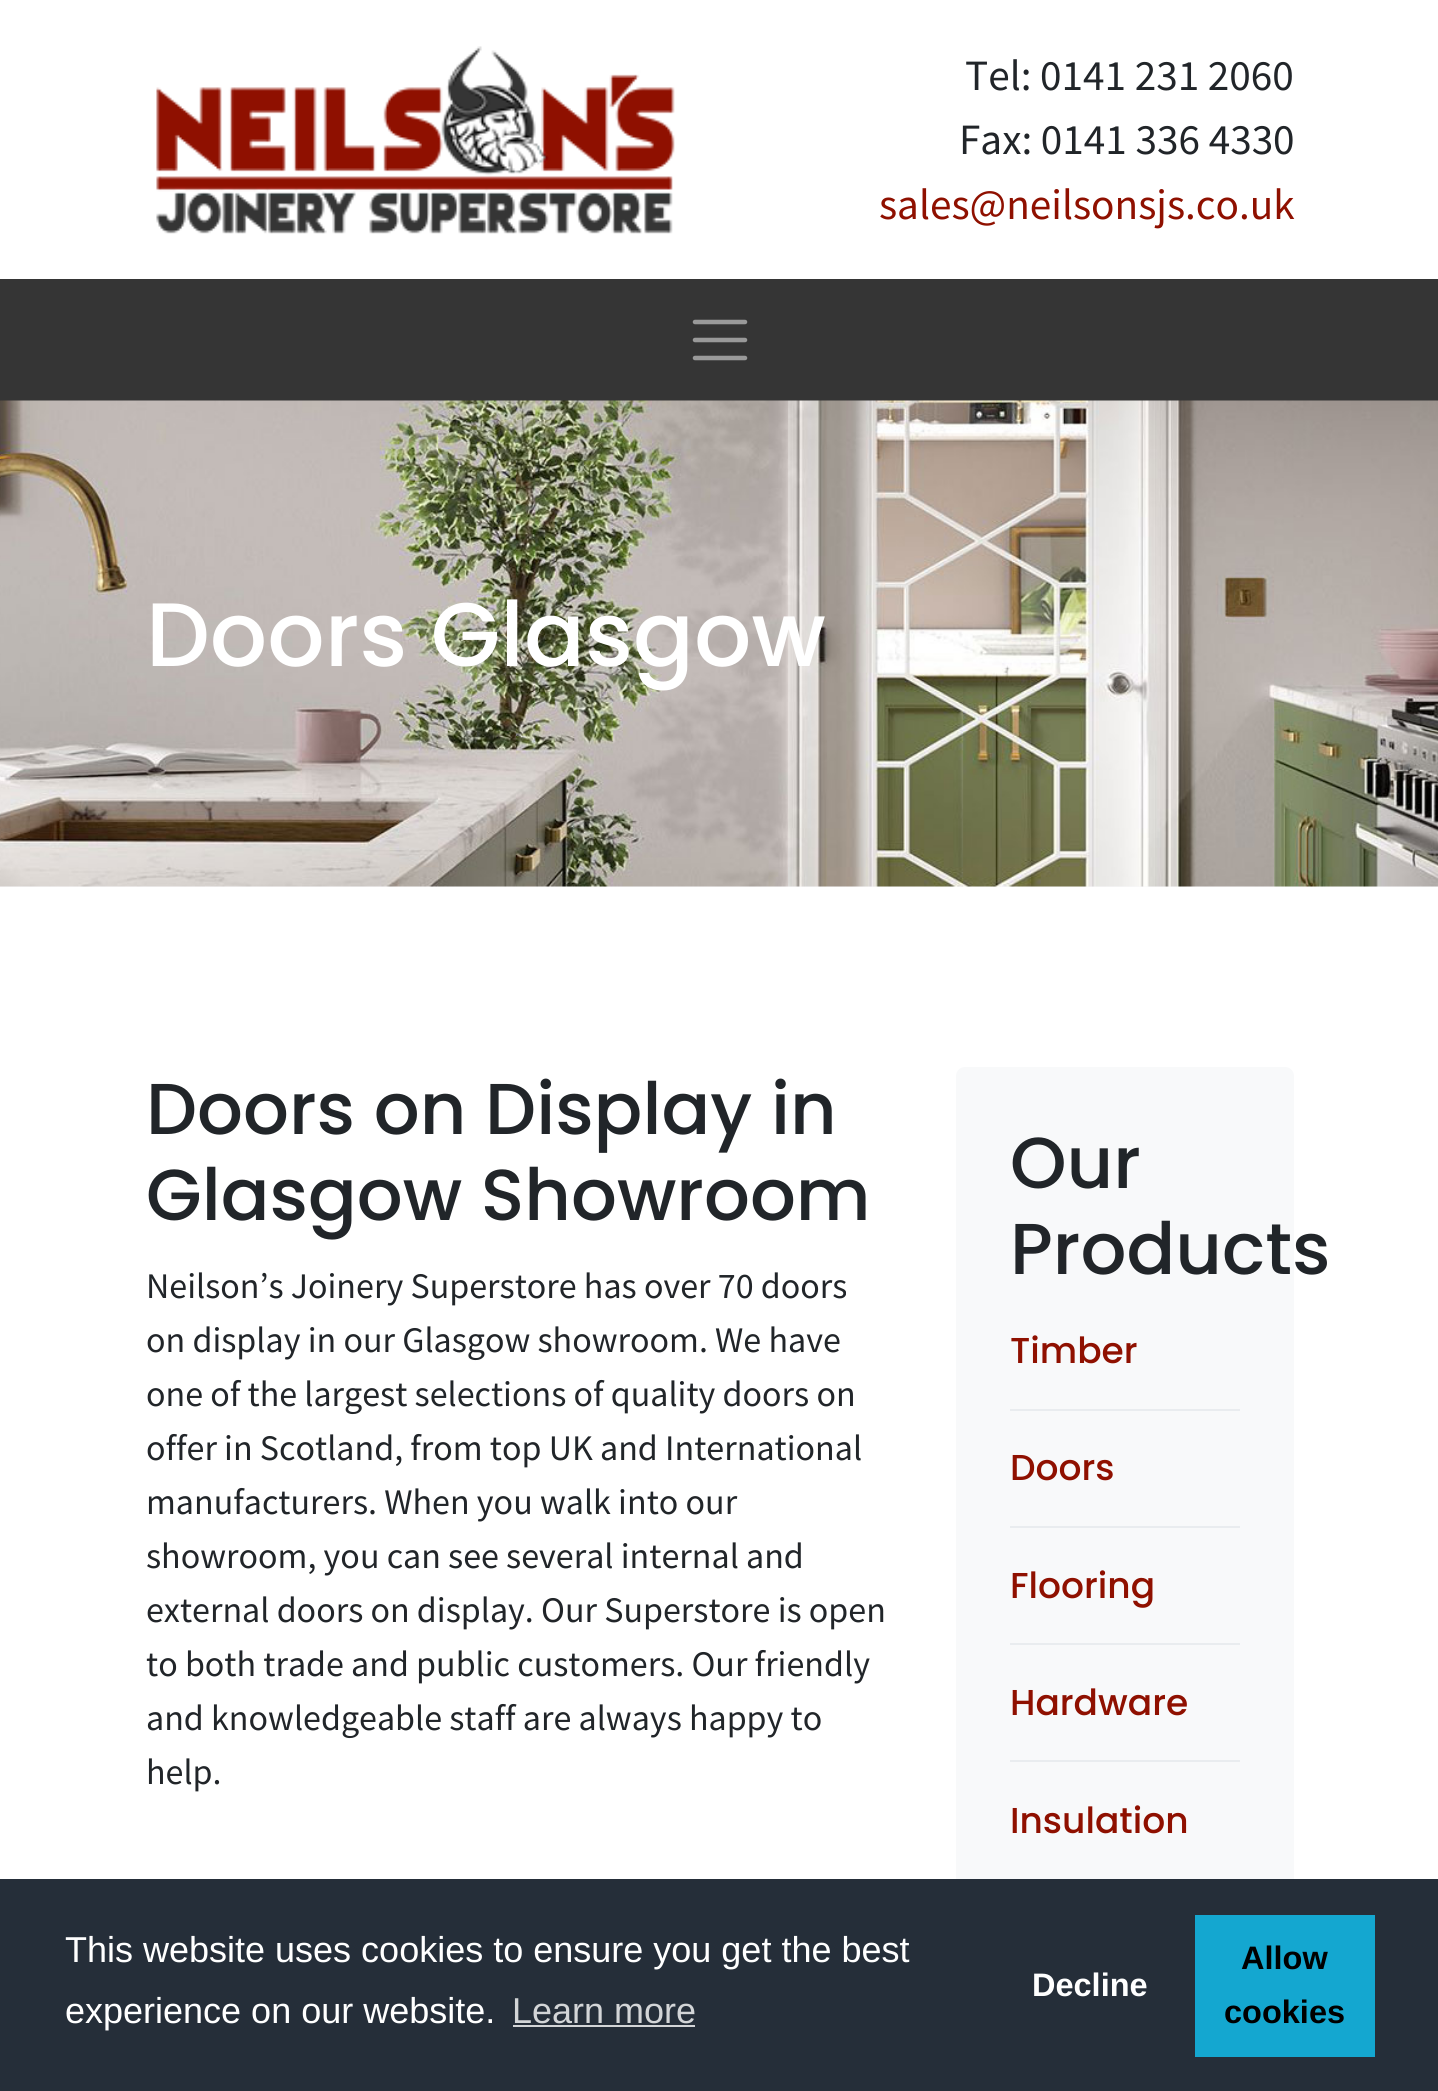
import math
import cairo

surface = cairo.ImageSurface(cairo.FORMAT_RGB24, 1438, 2091)
ctx = cairo.Context(surface)
options = cairo.FontOptions()
options.set_hint_metrics(cairo.HINT_METRICS_OFF)
options.set_hint_style(cairo.HINT_STYLE_NONE)
ctx.set_font_options(options)
ctx.set_miter_limit(4)


def set_color(code):
    ctx.set_source_rgb(*(v / 255 for v in bytes.fromhex(code[-6:])))


def draw_text(x, y, s, family, size, color, bold=False, italic=False):
    ctx.select_font_face(family, cairo.FONT_SLANT_ITALIC if italic else cairo.FONT_SLANT_NORMAL, cairo.FONT_WEIGHT_BOLD if bold else cairo.FONT_WEIGHT_NORMAL)
    ctx.set_font_size(size)
    set_color(color)
    ctx.move_to(x, y)
    ctx.show_text(s)


def fill_rect(x, y, w, h, color):
    set_color(color)
    ctx.rectangle(x, y, w, h)
    ctx.fill()


def rounded_rect(x, y, w, h, r):
    ctx.new_sub_path()
    for i, (u, v) in enumerate([(x + w - r, y + h - r), (x + r, y + h - r), (x + r, y + r), (x + w - r, y + r)]):
        ctx.arc(u, v, r, i * math.pi / 2, (i + 1) * math.pi / 2)
    ctx.close_path()


def draw_image(path, x, y, w, h):
    ctx.save()
    ctx.set_source_surface(cairo.ImageSurface.create_from_png(path), x, y)
    ctx.rectangle(x, y, w, h)
    ctx.fill()
    ctx.restore()


set_color("#ffffff")
ctx.paint()
draw_image("assets/img1.png", 156, 46, 519, 188)
draw_text(965, 90, "Tel: 0141 231 2060", "Source Sans Pro", 43.25, "#212529")
draw_text(959, 154, "Fax: 0141 336 4330", "Source Sans Pro", 43.25, "#212529")
draw_text(879, 219, "sales@neilsonsjs.co.uk", "Source Sans Pro", 43.25, "#8f1000")
fill_rect(0, 279, 1438, 122, "#353535")
ctx.new_path()
ctx.move_to(695, 322)
ctx.line_to(745, 322)
ctx.move_to(695, 340)
ctx.line_to(745, 340)
ctx.move_to(695, 358)
ctx.line_to(745, 358)
set_color("#9a9a9a")
ctx.set_line_width(4.5)
ctx.set_line_cap(cairo.LINE_CAP_ROUND)
ctx.stroke()
fill_rect(0, 886, 1438, 1, "#f8f9fa")
draw_image("assets/img2.png", 0, 400, 1438, 487)
draw_text(146, 666, "Doors Glasgow", "Poppins Medium", 90, "#ffffff")
draw_text(146, 1134, "Doors on Display in", "Poppins Medium", 72, "#212529")
draw_text(146, 1220, "Glasgow Showroom", "Poppins Medium", 72, "#212529")
draw_text(146, 1298, "Neilson’s Joinery Superstore has over 70 doors", "Source Sans Pro", 36, "#212529")
draw_text(146, 1352, "on display in our Glasgow showroom. We have", "Source Sans Pro", 36, "#212529")
draw_text(146, 1406, "one of the largest selections of quality doors on", "Source Sans Pro", 36, "#212529")
draw_text(146, 1460, "offer in Scotland, from top UK and International", "Source Sans Pro", 36, "#212529")
draw_text(146, 1514, "manufacturers. When you walk into our", "Source Sans Pro", 36, "#212529")
draw_text(146, 1568, "showroom, you can see several internal and", "Source Sans Pro", 36, "#212529")
draw_text(146, 1622, "external doors on display. Our Superstore is open", "Source Sans Pro", 36, "#212529")
draw_text(146, 1676, "to both trade and public customers. Our friendly", "Source Sans Pro", 36, "#212529")
draw_text(146, 1730, "and knowledgeable staff are always happy to", "Source Sans Pro", 36, "#212529")
draw_text(146, 1784, "help.", "Source Sans Pro", 36, "#212529")
set_color("#f8f9fa")
rounded_rect(956, 1067, 338, 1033, 9)
ctx.fill()
draw_text(1010, 1188, "Our", "Poppins Medium", 72, "#212529")
draw_text(1010, 1274, "Products", "Poppins Medium", 72, "#212529")
draw_text(1010, 1363, "Timber", "Poppins Medium", 36, "#8f1000")
fill_rect(1010, 1409, 230, 2, "#e9ecef")
draw_text(1010, 1480, "Doors", "Poppins Medium", 36, "#8f1000")
fill_rect(1010, 1526, 230, 2, "#e9ecef")
draw_text(1010, 1598, "Flooring", "Poppins Medium", 36, "#8f1000")
fill_rect(1010, 1643, 230, 2, "#e9ecef")
draw_text(1010, 1715, "Hardware", "Poppins Medium", 36, "#8f1000")
fill_rect(1010, 1760, 230, 2, "#e9ecef")
draw_text(1010, 1833, "Insulation", "Poppins Medium", 36, "#8f1000")
fill_rect(0, 1879, 1438, 212, "#252e39")
draw_text(65, 1962, "This website uses cookies to ensure you get the best", "Liberation Sans", 36, "#ffffff")
draw_text(65, 2023, "experience on our website.", "Liberation Sans", 36, "#ffffff")
draw_text(512, 2023, "Learn more", "Liberation Sans", 36, "#d3d5d7")
fill_rect(513, 2025, 182, 2, "#d3d5d7")
draw_text(1032, 1996, "Decline", "Liberation Sans", 32.5, "#ffffff", bold=True)
fill_rect(1195, 1915, 180, 142, "#14a7d0")
draw_text(1241, 1969, "Allow", "Liberation Sans", 32.5, "#000000", bold=True)
draw_text(1224, 2023, "cookies", "Liberation Sans", 32.5, "#000000", bold=True)
surface.write_to_png("output.png")
